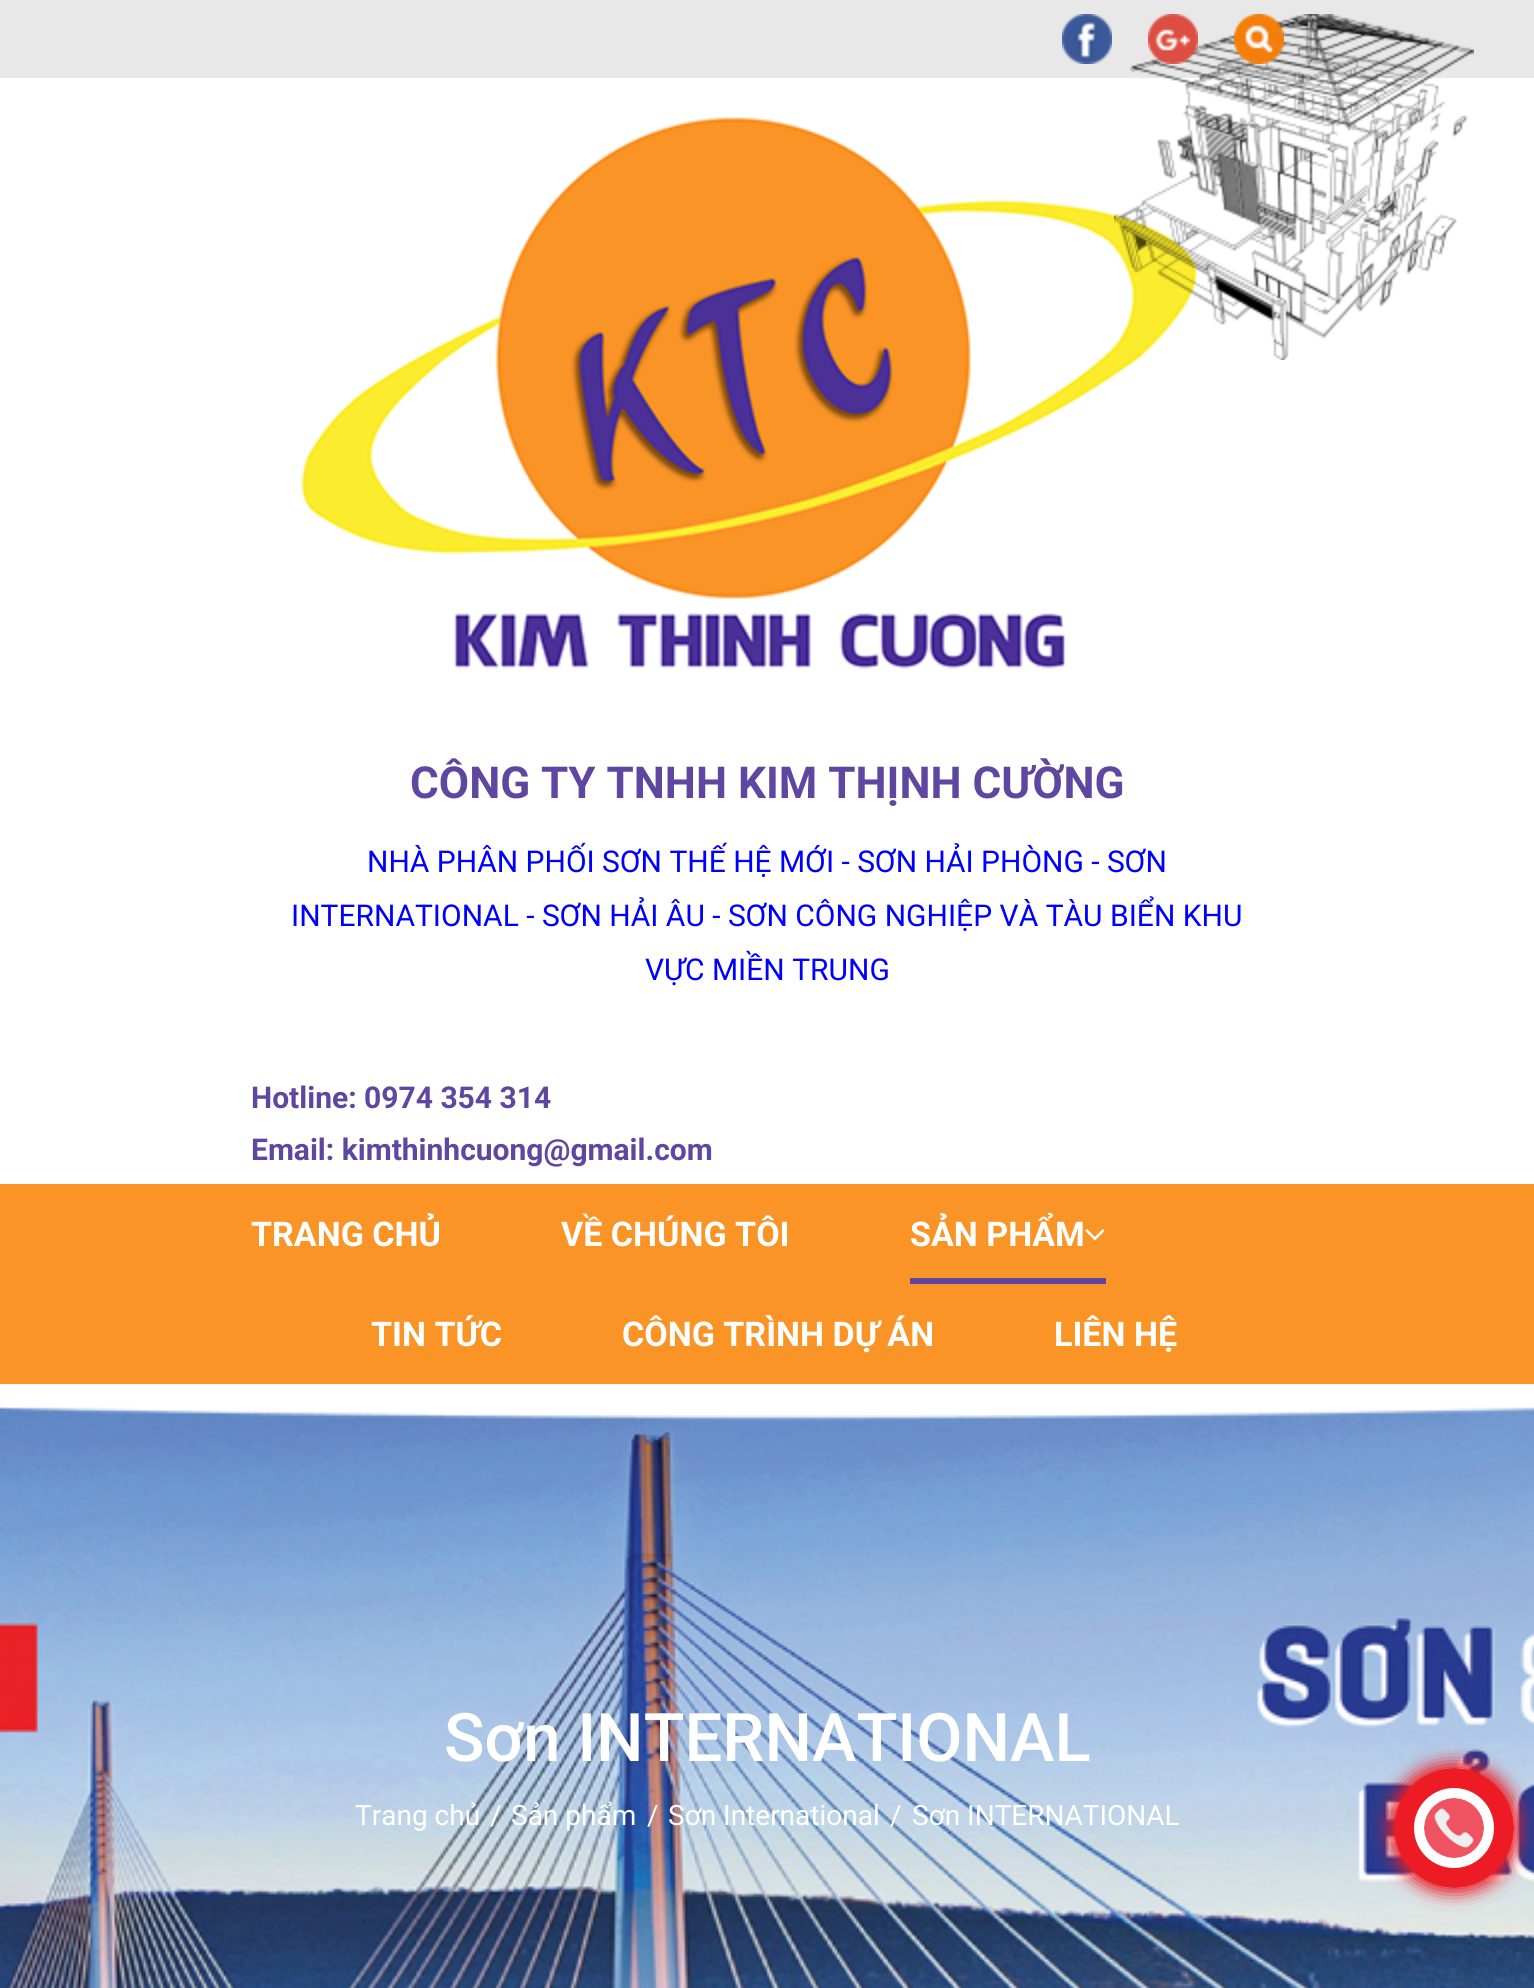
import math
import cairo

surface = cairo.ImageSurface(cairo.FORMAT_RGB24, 1534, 1988)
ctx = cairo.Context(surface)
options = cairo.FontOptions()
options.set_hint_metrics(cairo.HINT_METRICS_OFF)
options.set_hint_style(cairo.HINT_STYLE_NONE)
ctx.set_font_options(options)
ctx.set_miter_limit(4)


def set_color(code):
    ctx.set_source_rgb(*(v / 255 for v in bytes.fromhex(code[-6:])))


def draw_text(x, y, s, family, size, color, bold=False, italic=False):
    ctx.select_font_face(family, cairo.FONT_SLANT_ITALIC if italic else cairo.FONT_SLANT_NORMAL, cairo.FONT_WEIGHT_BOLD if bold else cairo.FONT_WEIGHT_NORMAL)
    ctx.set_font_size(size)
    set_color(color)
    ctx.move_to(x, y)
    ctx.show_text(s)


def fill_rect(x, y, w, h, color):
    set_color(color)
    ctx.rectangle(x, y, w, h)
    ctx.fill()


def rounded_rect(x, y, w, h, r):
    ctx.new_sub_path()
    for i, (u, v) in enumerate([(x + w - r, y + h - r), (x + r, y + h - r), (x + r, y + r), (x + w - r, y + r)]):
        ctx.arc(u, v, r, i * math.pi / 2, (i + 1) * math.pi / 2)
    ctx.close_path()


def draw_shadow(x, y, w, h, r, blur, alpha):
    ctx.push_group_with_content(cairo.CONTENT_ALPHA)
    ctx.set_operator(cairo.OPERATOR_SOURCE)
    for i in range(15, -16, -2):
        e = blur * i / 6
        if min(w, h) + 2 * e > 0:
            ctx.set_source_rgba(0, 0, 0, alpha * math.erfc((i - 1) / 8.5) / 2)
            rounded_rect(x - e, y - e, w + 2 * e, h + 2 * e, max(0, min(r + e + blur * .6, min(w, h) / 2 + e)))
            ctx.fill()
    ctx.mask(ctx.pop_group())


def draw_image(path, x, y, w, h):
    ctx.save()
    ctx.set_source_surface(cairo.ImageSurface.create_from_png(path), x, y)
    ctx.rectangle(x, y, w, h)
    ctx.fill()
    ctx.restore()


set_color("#ffffff")
ctx.paint()
fill_rect(0, 0, 1534, 78, "#e8e8e8")
draw_image("assets/img1.png", 1062, 14, 50, 50)
draw_image("assets/img5.png", 301, 117, 896, 552)
draw_image("assets/img4.png", 1114, 14, 360, 346)
draw_image("assets/img2.png", 1148, 14, 50, 50)
draw_image("assets/img3.png", 1234, 14, 50, 50)
draw_text(410, 798, "CÔNG TY TNHH KIM THỊNH CƯỜNG", "Roboto", 44, "#5e46a1", bold=True)
draw_text(367, 872, "NHÀ PHÂN PHỐI SƠN THẾ HỆ MỚI - SƠN HẢI PHÒNG - SƠN", "Roboto", 30, "#0000ff")
draw_text(291, 926, "INTERNATIONAL - SƠN HẢI ÂU - SƠN CÔNG NGHIỆP VÀ TÀU BIỂN KHU", "Roboto", 30, "#0000ff")
draw_text(645, 980, "VỰC MIỀN TRUNG", "Roboto", 30, "#0000ff")
draw_text(251, 1108, "Hotline: 0974 354 314", "Roboto", 30, "#5e46a1", bold=True)
draw_text(251, 1160, "Email: kimthinhcuong@gmail.com", "Roboto", 30, "#5e46a1", bold=True)
fill_rect(0, 1184, 1534, 200, "#fa9426")
draw_text(251, 1246, "TRANG CHỦ", "Roboto", 34, "#ffffff", bold=True)
draw_text(561, 1246, "VỀ CHÚNG TÔI", "Roboto", 34, "#ffffff", bold=True)
draw_text(910, 1246, "SẢN PHẨM", "Roboto", 34, "#ffffff", bold=True)
draw_image("assets/img6.png", 1085, 1229, 20, 12)
fill_rect(910, 1278, 196, 6, "#5e46a1")
draw_text(371, 1346, "TIN TỨC", "Roboto", 34, "#ffffff", bold=True)
draw_text(622, 1346, "CÔNG TRÌNH DỰ ÁN", "Roboto", 34, "#ffffff", bold=True)
draw_text(1054, 1346, "LIÊN HỆ", "Roboto", 34, "#ffffff", bold=True)
draw_image("assets/img7.png", 0, 1406, 1534, 582)
draw_text(444, 1761, "Sơn INTERNATIONAL", "Roboto Medium", 67, "#ffffff")
draw_text(355, 1825, "Trang chủ", "Roboto", 28, "#ffffff")
draw_text(490, 1825, "/", "Roboto", 28, "#ffffff")
draw_text(511, 1825, "Sản phẩm", "Roboto", 28, "#ffffff")
draw_text(647, 1825, "/", "Roboto", 28, "#ffffff")
draw_text(668, 1825, "Sơn International", "Roboto", 28, "#ffffff")
draw_text(890, 1825, "/", "Roboto", 28, "#ffffff")
draw_text(912, 1825, "Sơn INTERNATIONAL", "Roboto", 28, "#ffffff")
ctx.new_path()
ctx.arc(1454, 1828, 50, 0, 2 * math.pi)
ctx.fill_preserve()
set_color("#ed1c24")
ctx.set_line_width(20)
ctx.stroke()
ctx.save()
ctx.set_fill_rule(cairo.FILL_RULE_EVEN_ODD)
ctx.new_path()
ctx.move_to(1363, 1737)
ctx.line_to(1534, 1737)
ctx.line_to(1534, 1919)
ctx.line_to(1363, 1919)
ctx.close_path()
ctx.move_to(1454, 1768)
ctx.curve_to(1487, 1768, 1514, 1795, 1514, 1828)
ctx.curve_to(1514, 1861, 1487, 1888, 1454, 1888)
ctx.curve_to(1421, 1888, 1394, 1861, 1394, 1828)
ctx.curve_to(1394, 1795, 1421, 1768, 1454, 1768)
ctx.close_path()
ctx.clip()
set_color("#ed1c24")
draw_shadow(1394, 1768, 120, 120, 60, 10, 1)
draw_shadow(1394, 1768, 120, 120, 60, 10, 1)
ctx.restore()
draw_image("assets/img8.png", 1424, 1798, 60, 60)
surface.write_to_png("output.png")
